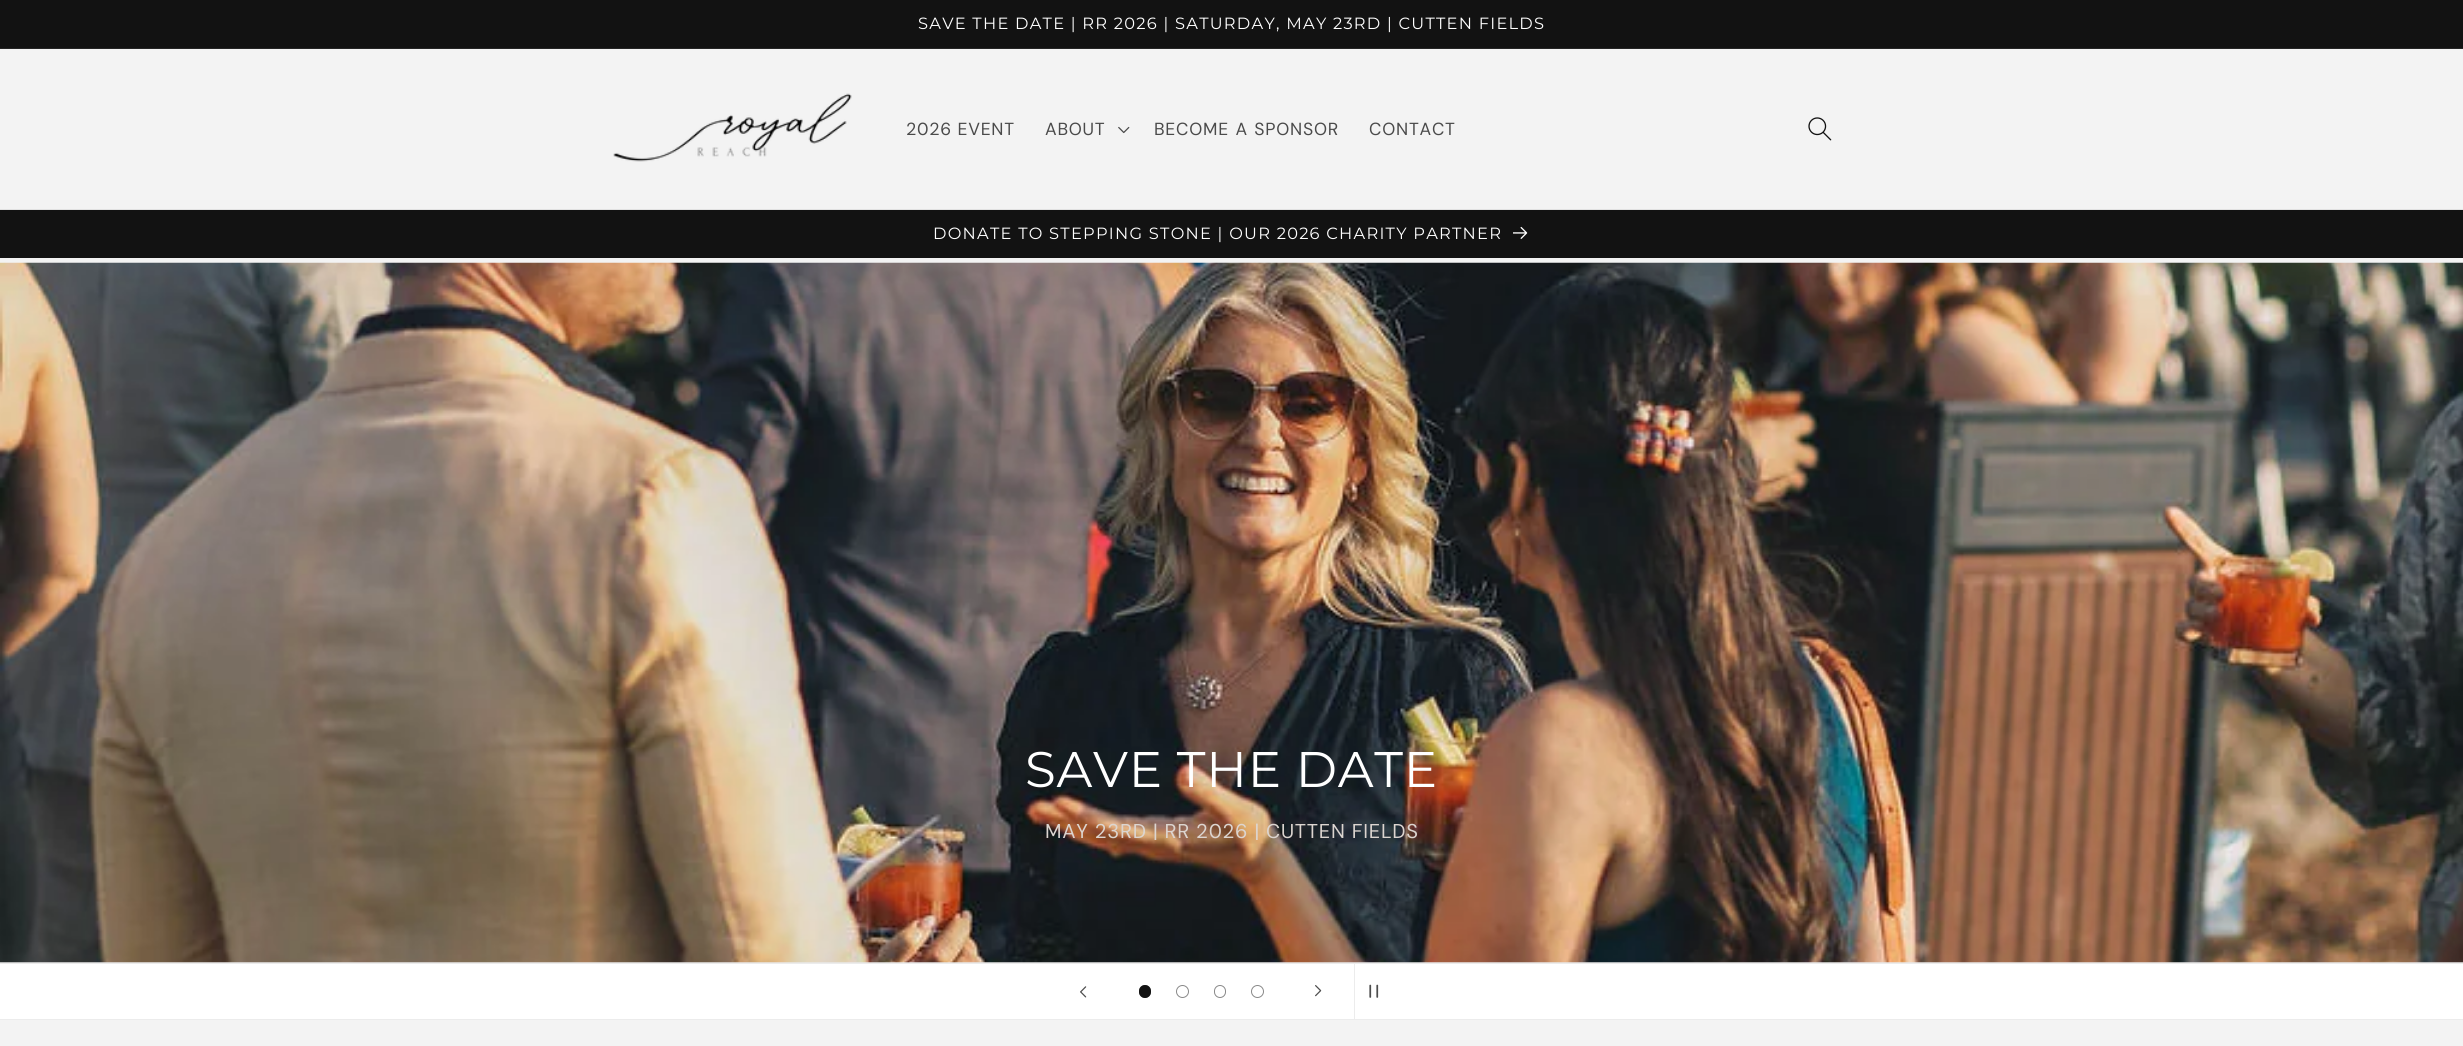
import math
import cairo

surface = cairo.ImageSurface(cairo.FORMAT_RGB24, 2463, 1046)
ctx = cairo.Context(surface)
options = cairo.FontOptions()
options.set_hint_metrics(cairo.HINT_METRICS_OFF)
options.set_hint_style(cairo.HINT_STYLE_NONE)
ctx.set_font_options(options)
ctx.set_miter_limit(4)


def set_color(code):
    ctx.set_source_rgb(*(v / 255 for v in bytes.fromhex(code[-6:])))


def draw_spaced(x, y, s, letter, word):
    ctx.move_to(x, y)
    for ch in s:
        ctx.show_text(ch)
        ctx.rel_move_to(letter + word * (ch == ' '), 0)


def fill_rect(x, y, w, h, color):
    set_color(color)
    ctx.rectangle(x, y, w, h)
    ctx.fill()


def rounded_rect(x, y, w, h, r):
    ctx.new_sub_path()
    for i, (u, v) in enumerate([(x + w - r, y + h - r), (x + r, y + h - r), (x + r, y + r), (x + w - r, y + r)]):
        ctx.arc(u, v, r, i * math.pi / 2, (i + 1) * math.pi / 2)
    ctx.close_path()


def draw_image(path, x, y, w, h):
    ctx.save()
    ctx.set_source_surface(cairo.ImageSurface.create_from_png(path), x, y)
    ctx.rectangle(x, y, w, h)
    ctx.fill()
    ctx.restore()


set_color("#ffffff")
ctx.paint()
fill_rect(0, 0, 2463, 48, "#121212")
fill_rect(0, 48, 2463, 1, "#252525")
ctx.select_font_face("Montserrat")
ctx.set_font_size(16.25)
set_color("#ffffff")
draw_spaced(918, 29, "SAVE THE DATE | RR 2026 | SATURDAY, MAY 23RD | CUTTEN FIELDS", 1.25, 0)
fill_rect(0, 49, 2463, 160, "#f3f3f3")
fill_rect(0, 209, 2463, 1, "#e1e1e1")
draw_image("assets/img1.png", 613, 93, 239, 69)
ctx.select_font_face("DM Sans")
ctx.set_font_size(17.5)
set_color("#4a4a4a")
draw_spaced(906, 135, "2026 EVENT", 0.75, 0)
draw_spaced(1045, 135, "ABOUT", 0.75, 0)
draw_image("assets/img2.png", 1118, 126, 12, 8)
draw_spaced(1154, 135, "BECOME A SPONSOR", 0.75, 1)
draw_spaced(1369, 135, "CONTACT", 0.75, 0)
draw_image("assets/img3.png", 1808, 117, 24, 24)
fill_rect(0, 210, 2463, 48, "#121212")
ctx.select_font_face("Montserrat")
ctx.set_font_size(16.25)
set_color("#ffffff")
draw_spaced(933, 239, "DONATE TO STEPPING STONE | OUR 2026 CHARITY PARTNER", 1.25, 0)
draw_image("assets/img4.png", 1513, 226, 15, 13)
fill_rect(0, 258, 2463, 5, "#f3f3f3")
fill_rect(0, 962, 2463, 1, "#e8e8e8")
draw_image("assets/img5.png", 0, 262, 2463, 701)
ctx.set_font_size(50)
set_color("#ffffff")
draw_spaced(1025, 787, "SAVE THE DATE", 0.75, 0)
ctx.select_font_face("DM Sans")
ctx.set_font_size(20)
set_color("#dcd5d0")
draw_spaced(1045, 838, "MAY 23RD | RR 2026 | CUTTEN FIELDS", 0.75, 0)
fill_rect(0, 963, 2463, 1, "#ececec")
fill_rect(0, 1019, 2463, 1, "#ececec")
draw_image("assets/img6.png", 1080, 986, 7, 12)
set_color("#121212")
rounded_rect(1139, 985, 12, 13, 6)
ctx.fill()
rounded_rect(1139.5, 985.5, 11, 12, 5.5)
ctx.set_source_rgba(0.071, 0.071, 0.071, 0.5)
ctx.set_line_width(1)
ctx.stroke()
ctx.arc(1182.5, 991.5, 6, 0, 2 * math.pi)
set_color("#898989")
ctx.stroke()
rounded_rect(1214.5, 985.5, 11, 12, 5.5)
ctx.stroke()
ctx.arc(1257.5, 991.5, 6, 0, 2 * math.pi)
ctx.stroke()
draw_image("assets/img7.png", 1315, 985, 7, 12)
fill_rect(1354, 964, 1, 55, "#ececec")
draw_image("assets/img8.png", 1369, 984, 10, 14)
fill_rect(0, 1020, 2463, 26, "#f3f3f3")
surface.write_to_png("output.png")
